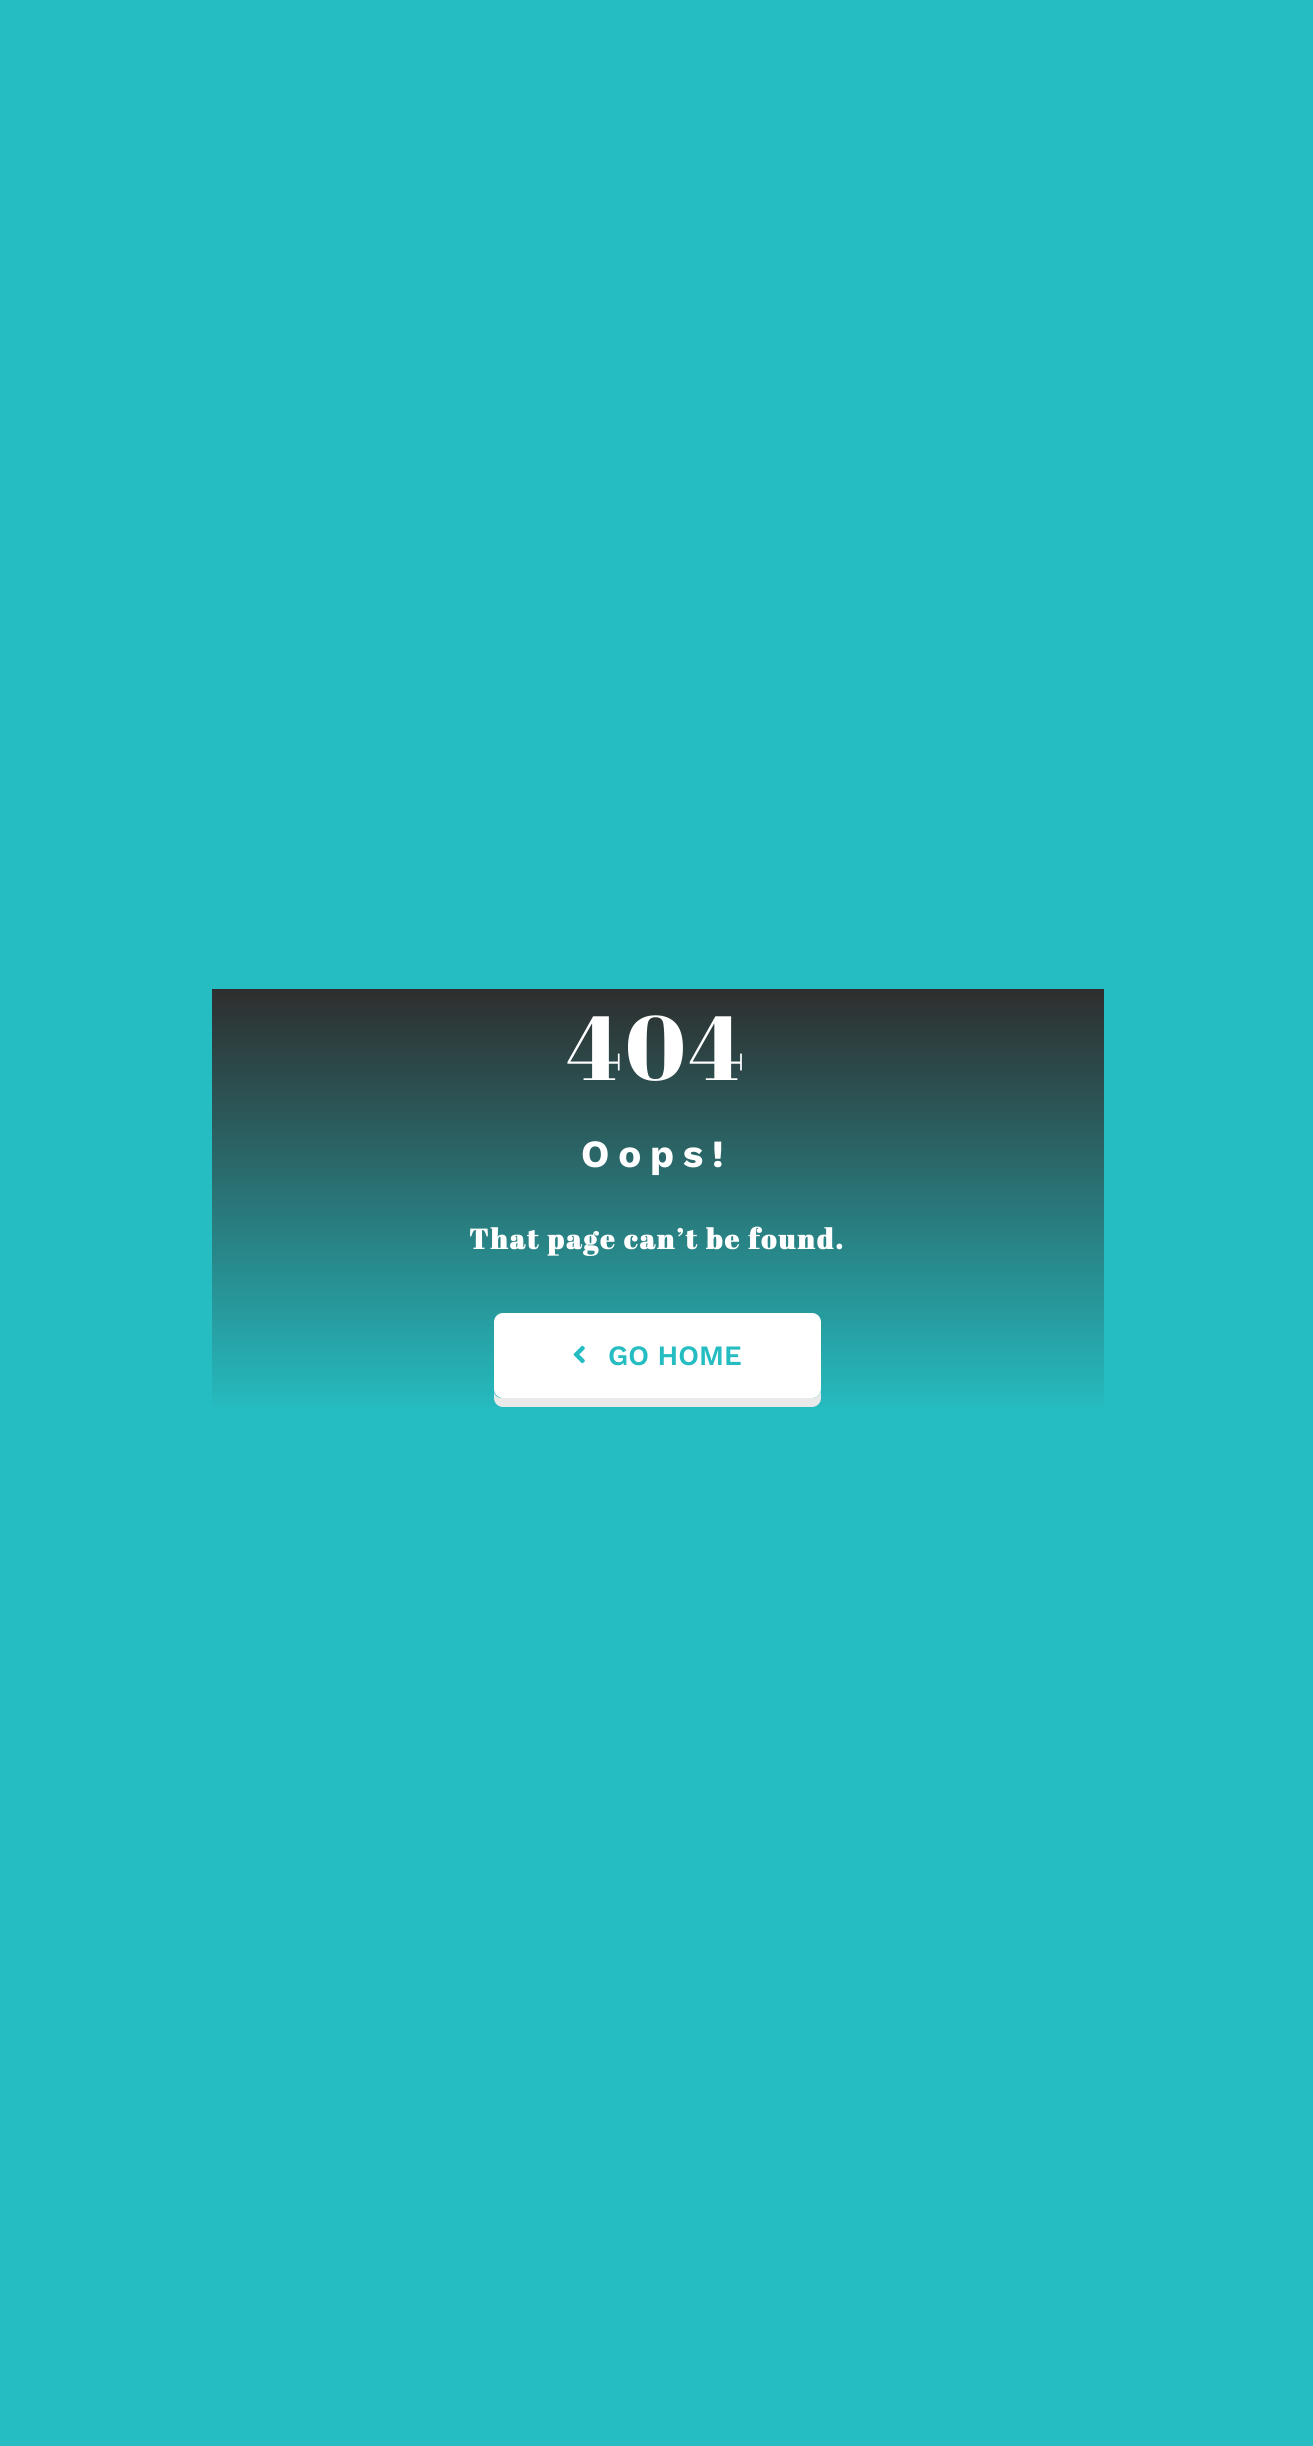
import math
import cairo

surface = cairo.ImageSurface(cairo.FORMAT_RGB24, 1313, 2446)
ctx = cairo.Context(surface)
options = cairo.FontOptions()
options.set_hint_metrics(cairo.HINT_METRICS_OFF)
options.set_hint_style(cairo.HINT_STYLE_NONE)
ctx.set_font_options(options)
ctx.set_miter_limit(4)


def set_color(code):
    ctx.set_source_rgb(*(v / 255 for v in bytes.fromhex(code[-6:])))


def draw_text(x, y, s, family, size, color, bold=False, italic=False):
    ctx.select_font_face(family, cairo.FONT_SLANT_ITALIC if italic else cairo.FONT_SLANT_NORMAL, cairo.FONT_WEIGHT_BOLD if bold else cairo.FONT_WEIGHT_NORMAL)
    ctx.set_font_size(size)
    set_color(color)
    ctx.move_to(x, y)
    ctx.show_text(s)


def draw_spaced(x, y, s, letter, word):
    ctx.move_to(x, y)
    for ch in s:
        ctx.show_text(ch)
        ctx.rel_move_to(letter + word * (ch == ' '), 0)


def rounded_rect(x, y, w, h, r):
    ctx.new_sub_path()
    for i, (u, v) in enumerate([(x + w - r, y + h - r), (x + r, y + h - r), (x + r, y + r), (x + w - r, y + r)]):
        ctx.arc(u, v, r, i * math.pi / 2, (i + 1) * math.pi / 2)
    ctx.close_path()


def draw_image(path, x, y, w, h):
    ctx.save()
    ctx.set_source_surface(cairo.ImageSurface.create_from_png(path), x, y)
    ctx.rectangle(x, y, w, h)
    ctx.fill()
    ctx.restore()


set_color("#25bdc1")
ctx.paint()
gradient = cairo.LinearGradient(658, 989, 658, 1414)
gradient.add_color_stop_rgba(0, 0.18, 0.18, 0.18, 1)
gradient.add_color_stop_rgba(1, 0.145, 0.741, 0.757, 1)
ctx.set_source(gradient)
ctx.rectangle(212, 989, 892, 418)
ctx.fill()
ctx.select_font_face("Abril Fatface")
ctx.set_font_size(91)
set_color("#ffffff")
draw_spaced(567, 1080, "404", 3.5, 0)
ctx.select_font_face("Work Sans", cairo.FONT_SLANT_NORMAL, cairo.FONT_WEIGHT_BOLD)
ctx.set_font_size(38.5)
draw_spaced(581, 1167, "Oops!", 8.75, 0)
ctx.select_font_face("Abril Fatface", cairo.FONT_SLANT_NORMAL, cairo.FONT_WEIGHT_BOLD)
ctx.set_font_size(28)
draw_spaced(469, 1249, "That page can’t be found.", 2.1, 0)
set_color("#e9e9e9")
ctx.new_path()
ctx.move_to(494, 1392)
ctx.line_to(494, 1398)
ctx.curve_to(494, 1403, 498, 1407, 503, 1407)
ctx.line_to(812, 1407)
ctx.curve_to(817, 1407, 821, 1403, 821, 1398)
ctx.line_to(821, 1328)
ctx.line_to(821, 1390)
ctx.curve_to(821, 1394, 817, 1398, 812, 1398)
ctx.line_to(502, 1398)
ctx.curve_to(498, 1398, 495, 1396, 494, 1392)
ctx.close_path()
ctx.fill()
set_color("#ffffff")
rounded_rect(494, 1313, 327, 85, 9)
ctx.fill()
draw_image("assets/img1.png", 573, 1345, 12, 19)
draw_text(608, 1365, "GO HOME", "Work Sans SemiBold", 28, "#25bdc1")
surface.write_to_png("output.png")
